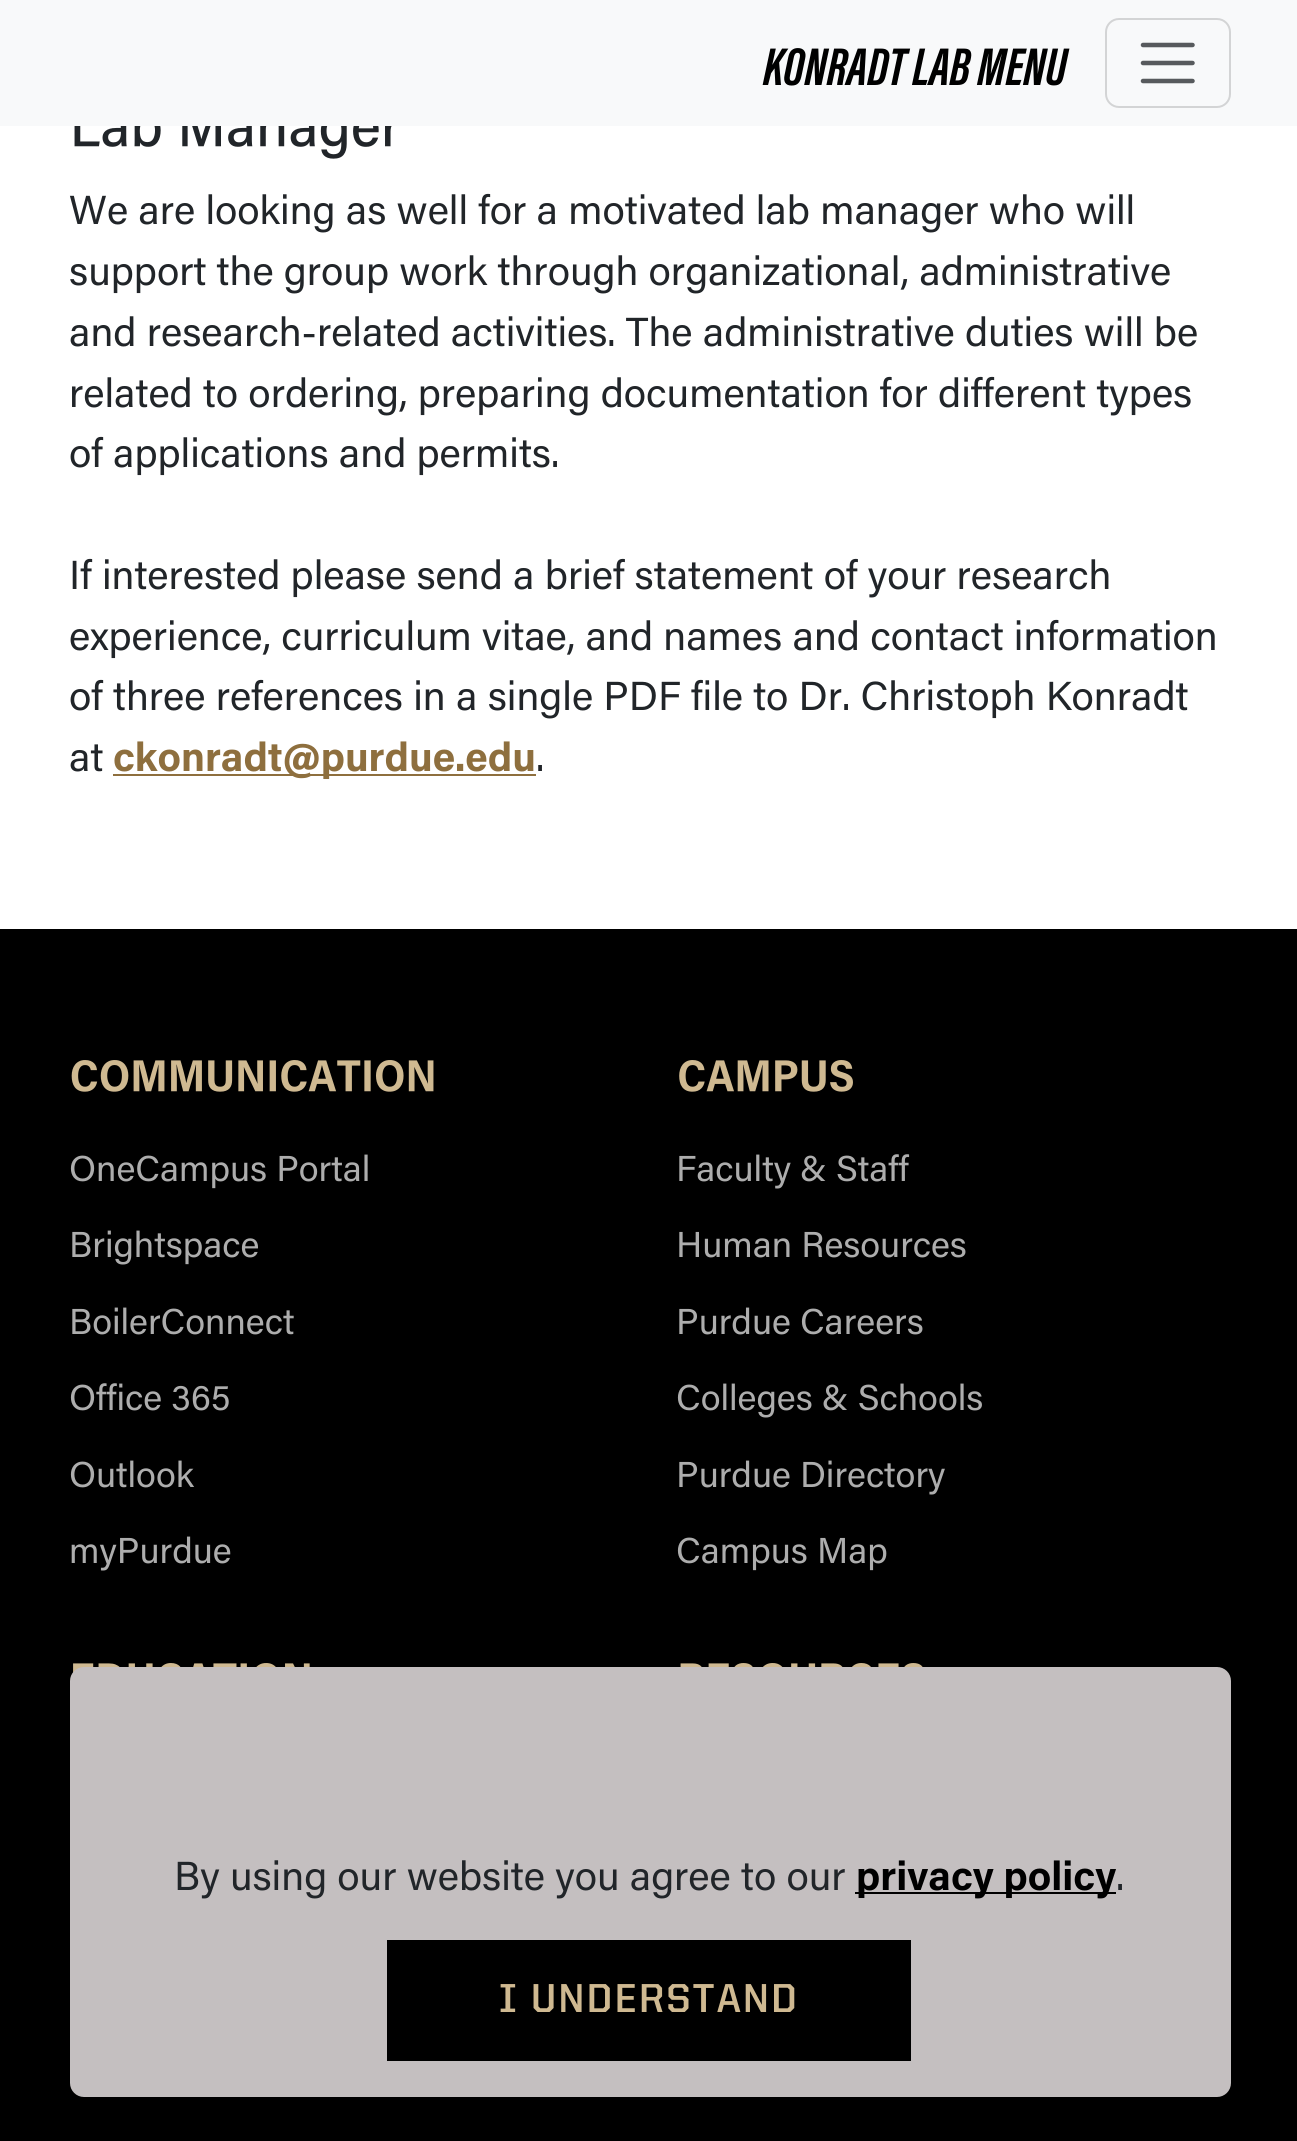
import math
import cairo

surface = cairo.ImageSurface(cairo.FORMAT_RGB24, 1297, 2141)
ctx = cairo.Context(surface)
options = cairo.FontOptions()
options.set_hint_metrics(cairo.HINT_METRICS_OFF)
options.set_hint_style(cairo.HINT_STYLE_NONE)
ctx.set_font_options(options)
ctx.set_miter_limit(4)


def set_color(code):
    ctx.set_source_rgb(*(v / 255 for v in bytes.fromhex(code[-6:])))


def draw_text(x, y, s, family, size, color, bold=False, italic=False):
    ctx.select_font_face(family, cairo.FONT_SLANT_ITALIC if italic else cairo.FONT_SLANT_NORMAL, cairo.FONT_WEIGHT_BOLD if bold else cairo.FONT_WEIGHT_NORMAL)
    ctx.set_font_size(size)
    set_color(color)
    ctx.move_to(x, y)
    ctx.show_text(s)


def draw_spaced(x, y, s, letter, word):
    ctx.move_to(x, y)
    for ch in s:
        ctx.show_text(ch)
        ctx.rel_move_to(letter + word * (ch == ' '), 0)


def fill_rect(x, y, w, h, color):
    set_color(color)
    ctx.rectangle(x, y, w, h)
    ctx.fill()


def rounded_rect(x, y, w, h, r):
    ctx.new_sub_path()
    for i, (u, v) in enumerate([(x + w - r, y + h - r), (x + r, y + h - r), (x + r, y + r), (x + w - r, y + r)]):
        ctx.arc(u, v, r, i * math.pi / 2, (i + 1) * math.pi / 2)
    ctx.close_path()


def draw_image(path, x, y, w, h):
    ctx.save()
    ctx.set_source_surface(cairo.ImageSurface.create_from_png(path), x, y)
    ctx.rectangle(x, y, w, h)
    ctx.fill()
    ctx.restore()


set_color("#ffffff")
ctx.paint()
fill_rect(0, 0, 1297, 126, "#f8f9fa")
draw_text(763, 85, "KONRADT LAB MENU", "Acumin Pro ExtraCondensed", 54.5, "#000000", bold=True, italic=True)
rounded_rect(1106, 19, 124, 88, 13)
set_color("#d3d4d5")
ctx.stroke()
ctx.new_path()
ctx.move_to(1143, 45)
ctx.line_to(1192.5, 45)
ctx.move_to(1143, 63)
ctx.line_to(1192.5, 63)
ctx.move_to(1143, 81)
ctx.line_to(1192.5, 81)
set_color("#575a5d")
ctx.set_line_width(4.5)
ctx.set_line_cap(cairo.LINE_CAP_ROUND)
ctx.stroke()
draw_image("assets/img1.png", 74, 126, 318, 33)
draw_text(69, 224, "We are looking as well for a motivated lab manager who will", "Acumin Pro", 40.5, "#212529")
draw_text(69, 285, "support the group work through organizational, administrative", "Acumin Pro", 40.5, "#212529")
draw_text(69, 346, "and research-related activities. The administrative duties will be", "Acumin Pro", 40.5, "#212529")
draw_text(69, 407, "related to ordering, preparing documentation for different types", "Acumin Pro", 40.5, "#212529")
draw_text(69, 467, "of applications and permits.", "Acumin Pro", 40.5, "#212529")
draw_text(69, 589, "If interested please send a brief statement of your research", "Acumin Pro", 40.5, "#212529")
draw_text(69, 650, "experience, curriculum vitae, and names and contact information", "Acumin Pro", 40.5, "#212529")
draw_text(69, 710, "of three references in a single PDF file to Dr. Christoph Konradt", "Acumin Pro", 40.5, "#212529")
draw_text(69, 771, "at", "Acumin Pro", 40.5, "#212529")
fill_rect(113, 774, 423, 2, "#8e6f3e")
draw_text(113, 771, "ckonradt@purdue.edu", "Acumin Pro", 40.5, "#8e6f3e", bold=True)
draw_text(536, 771, ".", "Acumin Pro", 40.5, "#212529")
fill_rect(0, 929, 1297, 1212, "#000000")
draw_image("assets/img2.png", 71, 1060, 363, 32)
draw_text(69, 1181, "OneCampus Portal", "Acumin Pro", 36, "#adadad")
draw_text(69, 1257, "Brightspace", "Acumin Pro", 36, "#adadad")
draw_text(69, 1334, "BoilerConnect", "Acumin Pro", 36, "#adadad")
draw_text(69, 1410, "Office 365", "Acumin Pro", 36, "#adadad")
draw_text(69, 1487, "Outlook", "Acumin Pro", 36, "#adadad")
draw_text(69, 1563, "myPurdue", "Acumin Pro", 36, "#adadad")
draw_image("assets/img3.png", 679, 1060, 174, 32)
draw_text(676, 1181, "Faculty & Staff", "Acumin Pro", 36, "#adadad")
draw_text(676, 1257, "Human Resources", "Acumin Pro", 36, "#adadad")
draw_text(676, 1334, "Purdue Careers", "Acumin Pro", 36, "#adadad")
draw_text(676, 1410, "Colleges & Schools", "Acumin Pro", 36, "#adadad")
draw_text(676, 1487, "Purdue Directory", "Acumin Pro", 36, "#adadad")
draw_text(676, 1563, "Campus Map", "Acumin Pro", 36, "#adadad")
draw_image("assets/img4.png", 73, 1663, 237, 10)
draw_image("assets/img5.png", 680, 1663, 243, 4)
set_color("#c4bfc0")
rounded_rect(70, 1667, 1161, 430, 14)
ctx.fill()
draw_text(174, 1890, "By using our website you agree to our", "Acumin Pro", 40.5, "#212529")
fill_rect(855, 1892, 261, 2, "#000000")
draw_text(856, 1890, "privacy policy", "Acumin Pro", 40.5, "#000000", bold=True)
draw_text(1116, 1890, ".", "Acumin Pro", 40.5, "#212529")
fill_rect(387, 1940, 524, 121, "#000000")
ctx.select_font_face("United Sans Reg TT", cairo.FONT_SLANT_NORMAL, cairo.FONT_WEIGHT_BOLD)
set_color("#cfb991")
draw_spaced(499, 2012, "I UNDERSTAND", 2, 0)
surface.write_to_png("output.png")
